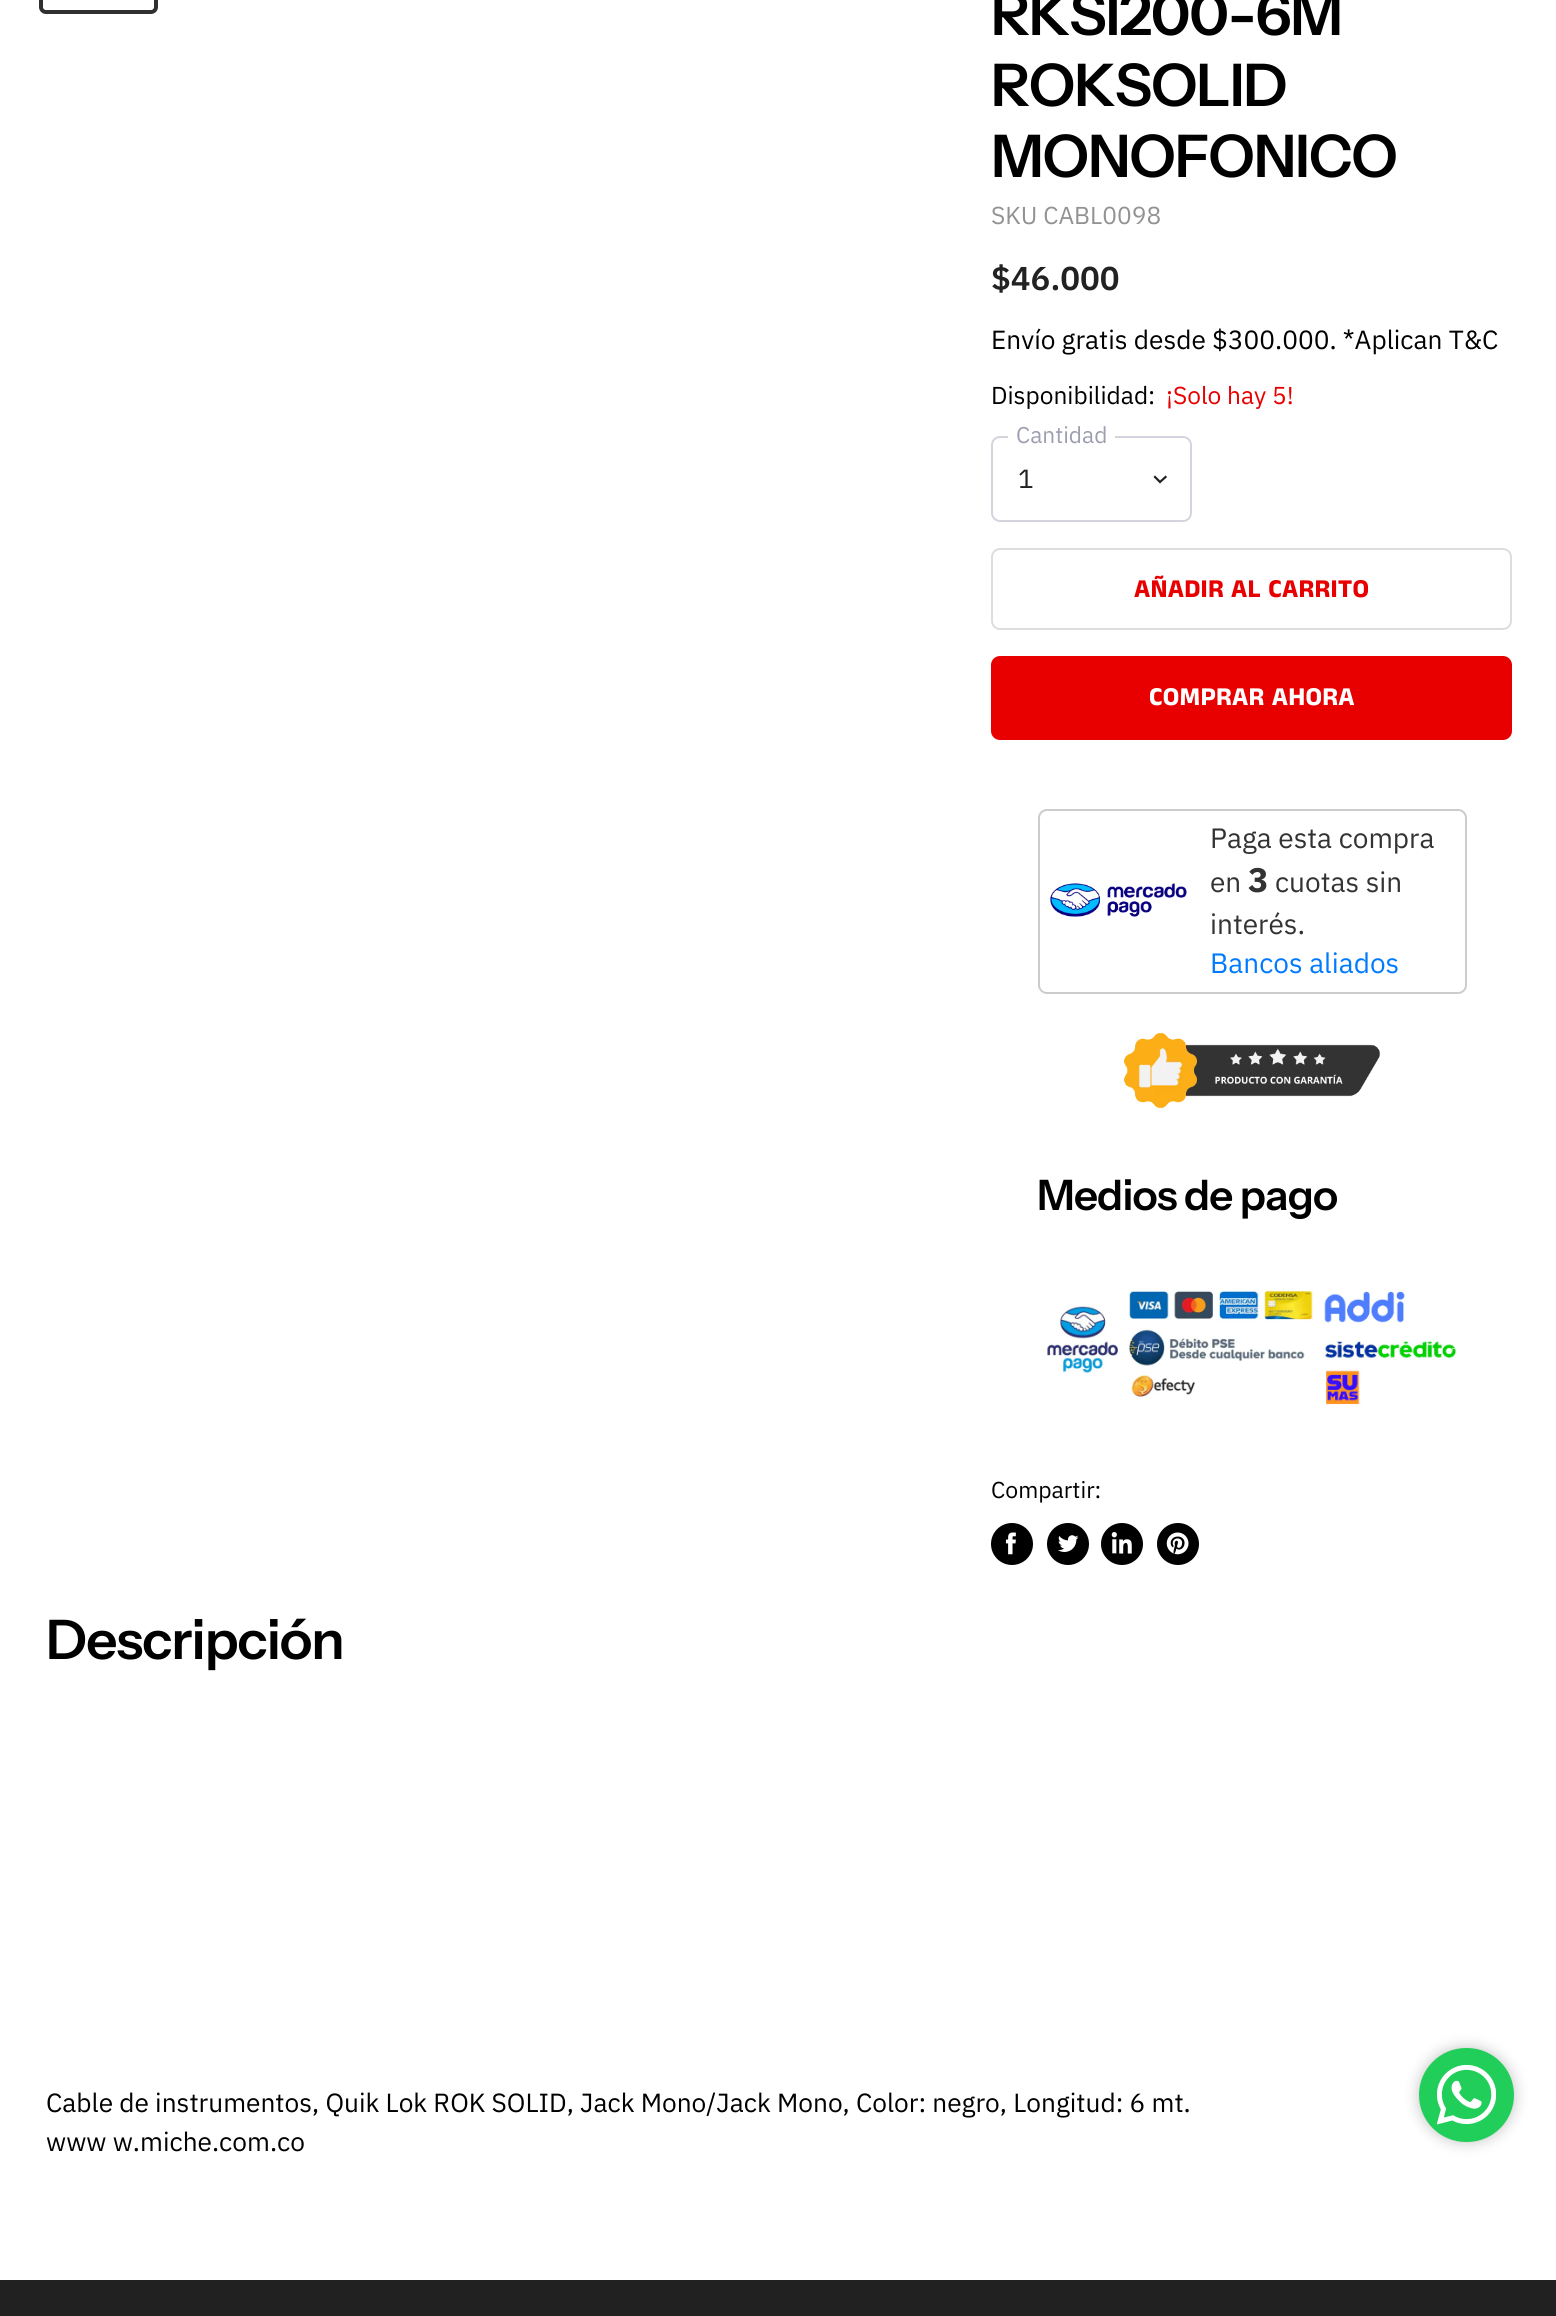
import math
import cairo

surface = cairo.ImageSurface(cairo.FORMAT_RGB24, 1556, 2316)
ctx = cairo.Context(surface)
options = cairo.FontOptions()
options.set_hint_metrics(cairo.HINT_METRICS_OFF)
options.set_hint_style(cairo.HINT_STYLE_NONE)
ctx.set_font_options(options)
ctx.set_miter_limit(4)


def set_color(code):
    ctx.set_source_rgb(*(v / 255 for v in bytes.fromhex(code[-6:])))


def draw_text(x, y, s, family, size, color, bold=False, italic=False):
    ctx.select_font_face(family, cairo.FONT_SLANT_ITALIC if italic else cairo.FONT_SLANT_NORMAL, cairo.FONT_WEIGHT_BOLD if bold else cairo.FONT_WEIGHT_NORMAL)
    ctx.set_font_size(size)
    set_color(color)
    ctx.move_to(x, y)
    ctx.show_text(s)


def draw_spaced(x, y, s, letter, word):
    ctx.move_to(x, y)
    for ch in s:
        ctx.show_text(ch)
        ctx.rel_move_to(letter + word * (ch == ' '), 0)


def fill_rect(x, y, w, h, color):
    set_color(color)
    ctx.rectangle(x, y, w, h)
    ctx.fill()


def rounded_rect(x, y, w, h, r):
    ctx.new_sub_path()
    for i, (u, v) in enumerate([(x + w - r, y + h - r), (x + r, y + h - r), (x + r, y + r), (x + w - r, y + r)]):
        ctx.arc(u, v, r, i * math.pi / 2, (i + 1) * math.pi / 2)
    ctx.close_path()


def draw_shadow(x, y, w, h, r, blur, alpha):
    ctx.push_group_with_content(cairo.CONTENT_ALPHA)
    ctx.set_operator(cairo.OPERATOR_SOURCE)
    for i in range(15, -16, -2):
        e = blur * i / 6
        if min(w, h) + 2 * e > 0:
            ctx.set_source_rgba(0, 0, 0, alpha * math.erfc((i - 1) / 8.5) / 2)
            rounded_rect(x - e, y - e, w + 2 * e, h + 2 * e, max(0, min(r + e + blur * .6, min(w, h) / 2 + e)))
            ctx.fill()
    ctx.mask(ctx.pop_group())


def draw_image(path, x, y, w, h):
    ctx.save()
    ctx.set_source_surface(cairo.ImageSurface.create_from_png(path), x, y)
    ctx.rectangle(x, y, w, h)
    ctx.fill()
    ctx.restore()


set_color("#ffffff")
ctx.paint()
rounded_rect(41, -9, 115, 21, 5)
set_color("#303030")
ctx.set_line_width(4)
ctx.stroke()
ctx.select_font_face("Instrument Sans SemiBold")
ctx.set_font_size(58.75)
set_color("#000000")
draw_spaced(991, 35, "RKSI200-6M", -1.25, 0)
draw_spaced(991, 106, "ROKSOLID", -1.25, 0)
draw_spaced(991, 177, "MONOFONICO", -1.25, 0)
draw_text(991, 224, "SKU CABL0098", "IBM Plex Sans", 24.5, "#929292")
draw_text(991, 290, "$46.000", "IBM Plex Sans SemiBold", 33, "#222222")
draw_text(991, 349, "Envío gratis desde $300.000. *Aplican T&C", "IBM Plex Sans", 26.25, "#000000")
draw_text(991, 404, "Disponibilidad:", "IBM Plex Sans", 24.5, "#000000")
draw_text(1166, 404, "¡Solo hay 5!", "IBM Plex Sans", 24.5, "#e80000")
rounded_rect(992, 437, 199, 84, 8)
set_color("#d3d4de")
ctx.set_line_width(2)
ctx.stroke()
fill_rect(1008, 436, 107, 2, "#ffffff")
draw_text(1016, 443, "Cantidad", "IBM Plex Sans", 22.75, "#9d9eaf")
draw_text(1018, 488, "1", "IBM Plex Sans", 26.25, "#222222")
ctx.new_path()
ctx.move_to(1160, 482)
ctx.line_to(1165.5, 477)
ctx.move_to(1160, 482)
ctx.line_to(1155, 477)
set_color("#212121")
ctx.set_line_width(2.2)
ctx.set_line_cap(cairo.LINE_CAP_SQUARE)
ctx.stroke()
rounded_rect(992, 549, 519, 80, 8)
set_color("#dddddd")
ctx.set_line_width(2)
ctx.set_line_cap(cairo.LINE_CAP_BUTT)
ctx.stroke()
ctx.select_font_face("Anek Tamil", cairo.FONT_SLANT_NORMAL, cairo.FONT_WEIGHT_BOLD)
ctx.set_font_size(26)
set_color("#e80000")
draw_spaced(1134, 597, "AÑADIR AL CARRITO", 0.25, 0)
rounded_rect(992, 657, 519, 82, 8)
ctx.fill_preserve()
ctx.stroke()
set_color("#ffffff")
draw_spaced(1149, 705, "COMPRAR AHORA", 0.25, 0)
rounded_rect(1039, 810, 427, 183, 8)
set_color("#cccccc")
ctx.stroke()
draw_image("assets/img1.png", 1050, 883, 137, 34)
draw_text(1210, 848, "Paga esta compra", "IBM Plex Sans", 28, "#333333")
draw_text(1210, 892, "en", "IBM Plex Sans", 28, "#333333")
draw_text(1248, 892, "3", "IBM Plex Sans", 34, "#333333", bold=True)
draw_text(1275, 892, "cuotas sin", "IBM Plex Sans", 28, "#333333")
draw_text(1210, 934, "interés.", "IBM Plex Sans", 28, "#333333")
draw_text(1210, 973, "Bancos aliados", "IBM Plex Sans", 28, "#007bff")
draw_image("assets/img2.png", 1124, 1032, 256, 76)
ctx.select_font_face("Instrument Sans SemiBold")
ctx.set_font_size(42)
set_color("#000000")
draw_spaced(1037, 1210, "Medios de pago", -0.8, 0)
draw_image("assets/img3.png", 1047, 1289, 410, 116)
draw_text(991, 1498, "Compartir:", "IBM Plex Sans", 23, "#000000")
ctx.new_path()
ctx.arc(1012, 1544, 21, 0, 2 * math.pi)
ctx.fill()
draw_image("assets/img4.png", 1006, 1532, 10, 23)
ctx.arc(1068, 1544, 21, 0, 2 * math.pi)
ctx.fill()
draw_image("assets/img5.png", 1058, 1535, 21, 17)
ctx.arc(1122, 1544, 21, 0, 2 * math.pi)
ctx.fill()
draw_image("assets/img6.png", 1111, 1532, 21, 22)
ctx.arc(1178, 1544, 21, 0, 2 * math.pi)
ctx.fill()
draw_image("assets/img7.png", 1166, 1532, 23, 23)
ctx.select_font_face("Instrument Sans SemiBold")
ctx.set_font_size(54.5)
draw_spaced(46, 1659, "Descripción", -1, 0)
draw_text(46, 2112, "Cable de instrumentos, Quik Lok ROK SOLID, Jack Mono/Jack Mono, Color: negro, Longitud: 6 mt.", "IBM Plex Sans", 26.25, "#000000")
draw_text(46, 2151, "www w.miche.com.co", "IBM Plex Sans", 26.25, "#000000")
set_color("#c2c2c2")
draw_shadow(1419, 2048, 95, 94, 47, 7, 1)
set_color("#22ce5a")
rounded_rect(1419, 2048, 95, 94, 47)
ctx.fill()
draw_image("assets/img8.png", 1437, 2065, 59, 60)
fill_rect(0, 2280, 1556, 36, "#212121")
surface.write_to_png("output.png")
